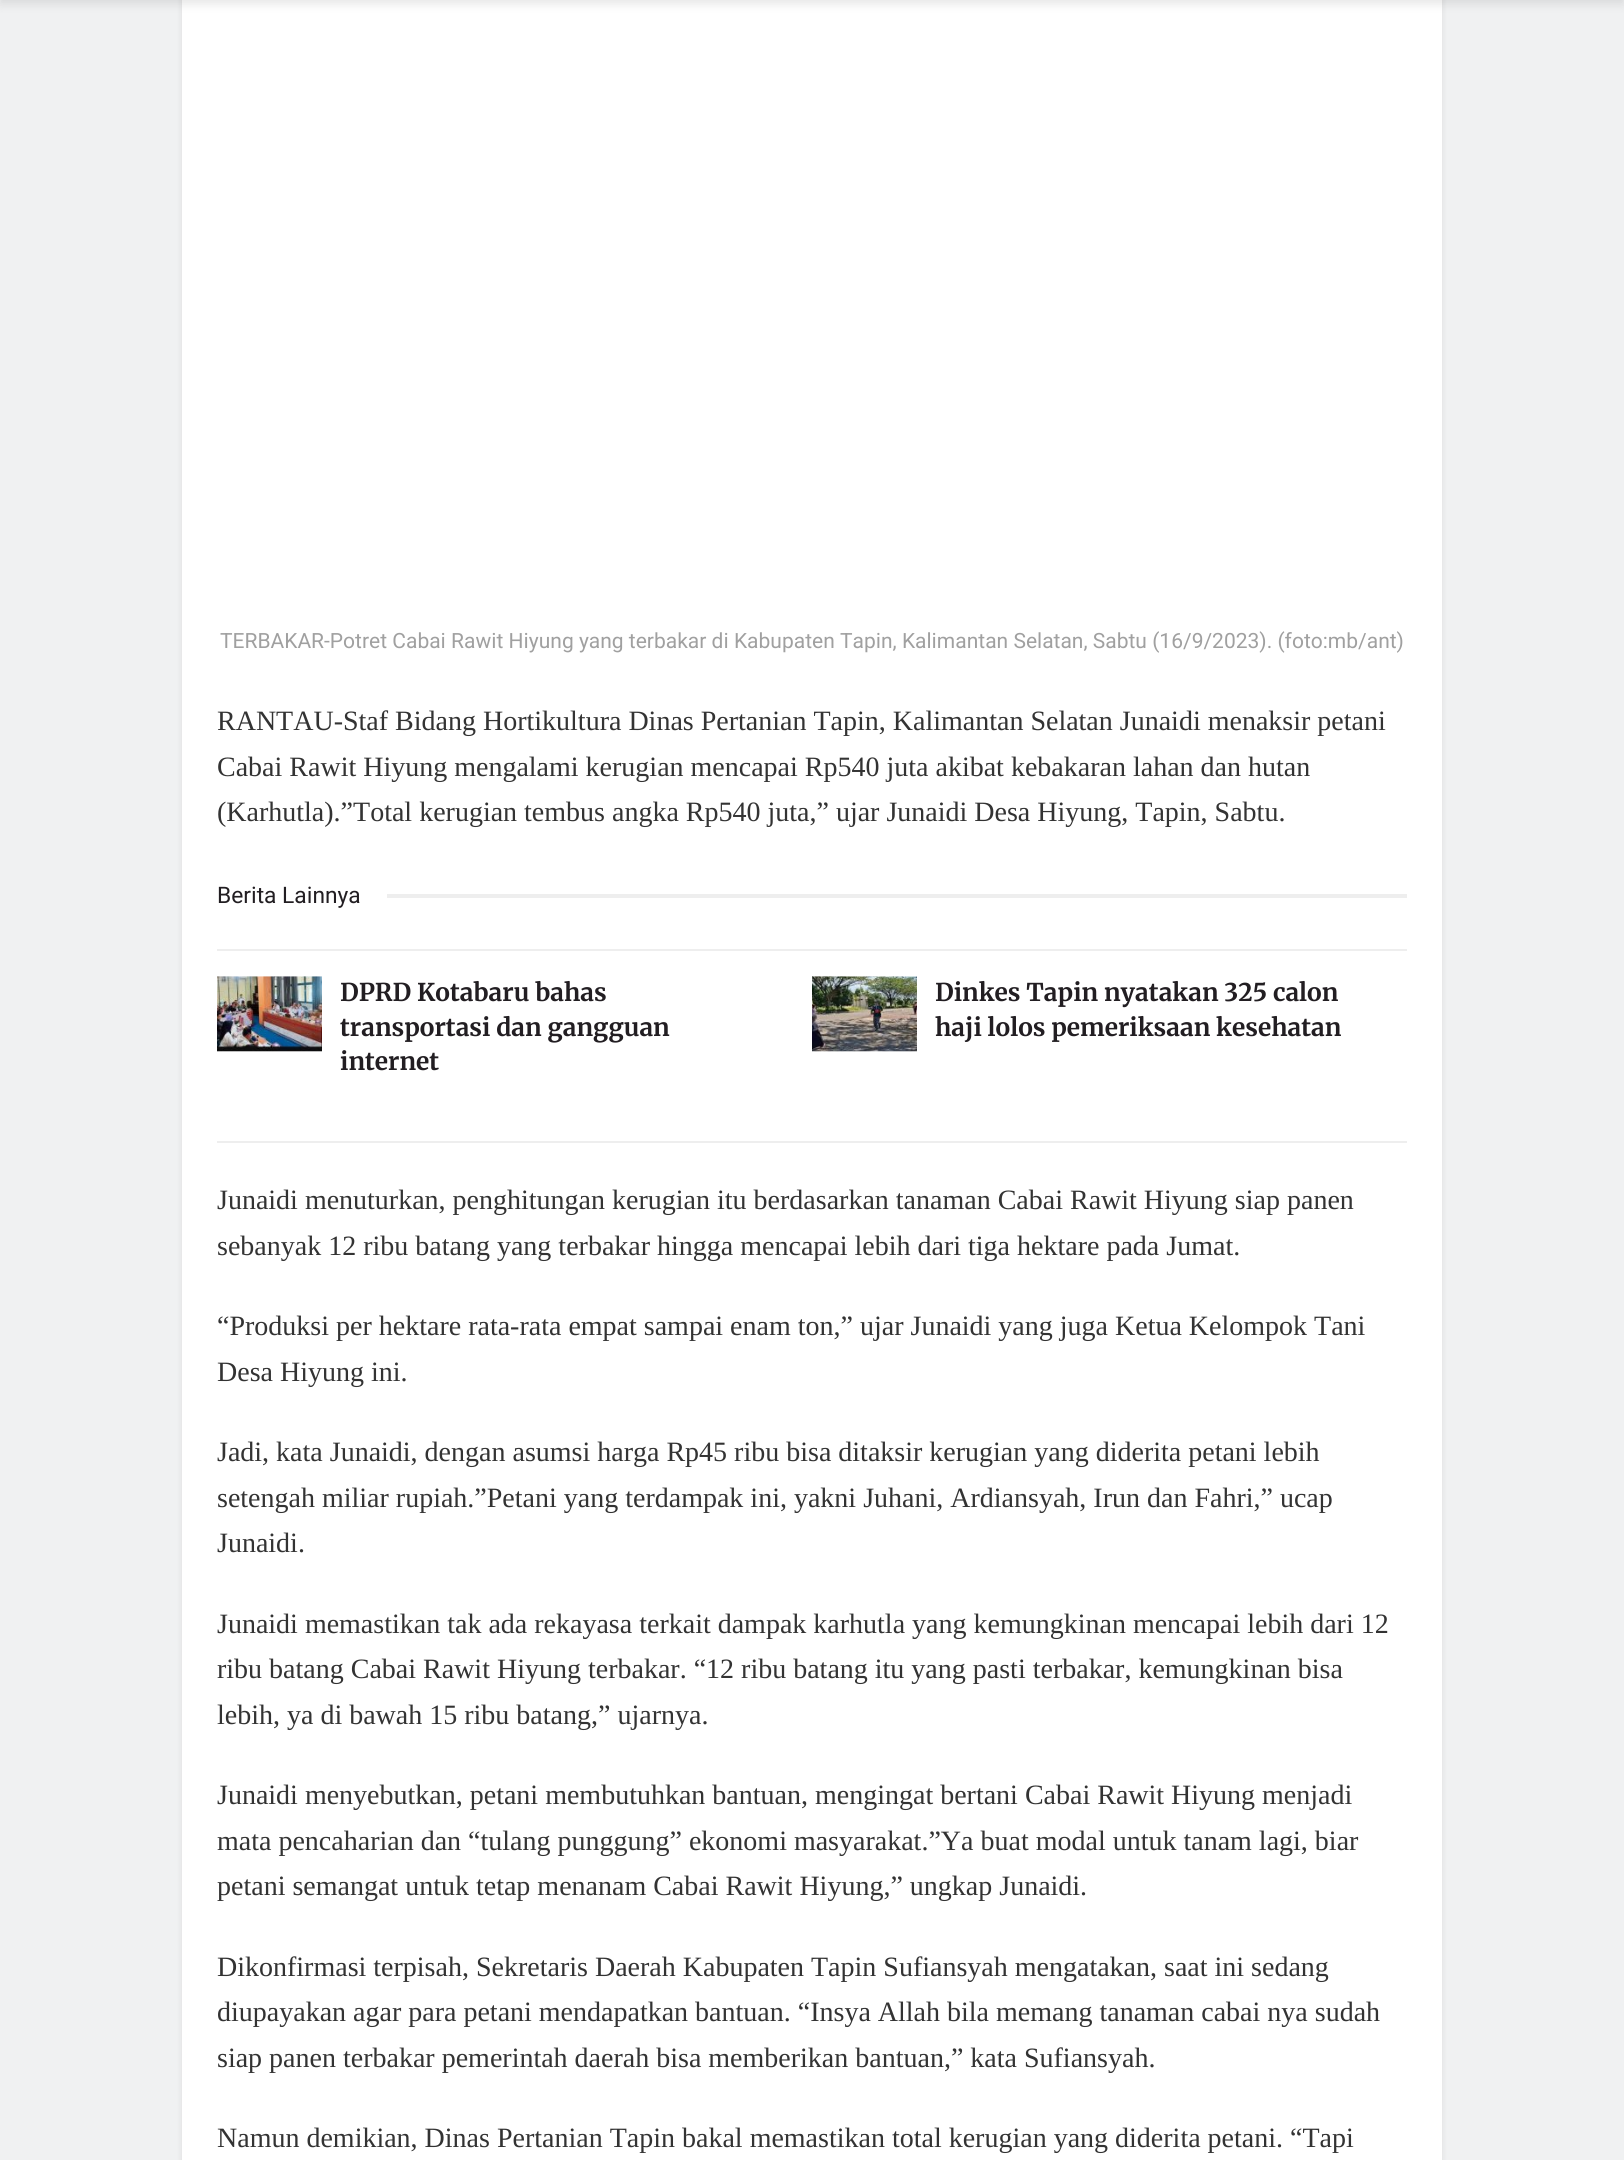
import math
import cairo

surface = cairo.ImageSurface(cairo.FORMAT_RGB24, 1624, 2160)
ctx = cairo.Context(surface)
options = cairo.FontOptions()
options.set_hint_metrics(cairo.HINT_METRICS_OFF)
options.set_hint_style(cairo.HINT_STYLE_NONE)
ctx.set_font_options(options)
ctx.set_miter_limit(4)


def set_color(code):
    ctx.set_source_rgb(*(v / 255 for v in bytes.fromhex(code[-6:])))


def draw_text(x, y, s, family, size, color, bold=False, italic=False):
    ctx.select_font_face(family, cairo.FONT_SLANT_ITALIC if italic else cairo.FONT_SLANT_NORMAL, cairo.FONT_WEIGHT_BOLD if bold else cairo.FONT_WEIGHT_NORMAL)
    ctx.set_font_size(size)
    set_color(color)
    ctx.move_to(x, y)
    ctx.show_text(s)


def fill_rect(x, y, w, h, color):
    set_color(color)
    ctx.rectangle(x, y, w, h)
    ctx.fill()


def rounded_rect(x, y, w, h, r):
    ctx.new_sub_path()
    for i, (u, v) in enumerate([(x + w - r, y + h - r), (x + r, y + h - r), (x + r, y + r), (x + w - r, y + r)]):
        ctx.arc(u, v, r, i * math.pi / 2, (i + 1) * math.pi / 2)
    ctx.close_path()


def draw_shadow(x, y, w, h, r, blur, alpha):
    ctx.push_group_with_content(cairo.CONTENT_ALPHA)
    ctx.set_operator(cairo.OPERATOR_SOURCE)
    for i in range(15, -16, -2):
        e = blur * i / 6
        if min(w, h) + 2 * e > 0:
            ctx.set_source_rgba(0, 0, 0, alpha * math.erfc((i - 1) / 8.5) / 2)
            rounded_rect(x - e, y - e, w + 2 * e, h + 2 * e, max(0, min(r + e + blur * .6, min(w, h) / 2 + e)))
            ctx.fill()
    ctx.mask(ctx.pop_group())


def draw_image(path, x, y, w, h):
    ctx.save()
    ctx.set_source_surface(cairo.ImageSurface.create_from_png(path), x, y)
    ctx.rectangle(x, y, w, h)
    ctx.fill()
    ctx.restore()


set_color("#f0f1f2")
ctx.paint()
set_color("#000000")
draw_shadow(182, -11, 1260, 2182, 0, 3.5, 0.08)
fill_rect(182, 0, 1260, 2160, "#ffffff")
set_color("#000000")
draw_shadow(0, -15, 1624, 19, 0, 5, 0.1)
draw_text(220, 648, "TERBAKAR-Potret Cabai Rawit Hiyung yang terbakar di Kabupaten Tapin, Kalimantan Selatan, Sabtu (16/9/2023). (foto:mb/ant)", "Heebo", 21, "#a0a0a0")
draw_text(217, 730, "RANTAU-Staf Bidang Hortikultura Dinas Pertanian Tapin, Kalimantan Selatan Junaidi menaksir petani", "Liberation Serif", 28, "#333333")
draw_text(217, 776, "Cabai Rawit Hiyung mengalami kerugian mencapai Rp540 juta akibat kebakaran lahan dan hutan", "Liberation Serif", 28, "#333333")
draw_text(217, 821, "(Karhutla).”Total kerugian tembus angka Rp540 juta,” ujar Junaidi Desa Hiyung, Tapin, Sabtu.", "Liberation Serif", 28, "#333333")
draw_text(217, 903, "Berita Lainnya", "Heebo", 22.75, "#221e22")
fill_rect(387, 894, 1020, 4, "#eeeeee")
fill_rect(217, 949, 1190, 2, "#eeeeee")
fill_rect(217, 1141, 1190, 2, "#eeeeee")
fill_rect(217, 1051, 105, 1, "#f7f7f7")
draw_image("assets/img1.png", 217, 976, 105, 1)
draw_image("assets/img2.png", 217, 976, 105, 76)
draw_text(340, 1001, "DPRD Kotabaru bahas", "Merriweather", 24.5, "#221e22", bold=True)
draw_text(340, 1036, "transportasi dan gangguan", "Merriweather", 24.5, "#221e22", bold=True)
draw_text(340, 1070, "internet", "Merriweather", 24.5, "#221e22", bold=True)
fill_rect(812, 1051, 105, 1, "#f7f7f7")
draw_image("assets/img1.png", 812, 976, 105, 1)
draw_image("assets/img3.png", 812, 976, 105, 76)
draw_text(935, 1001, "Dinkes Tapin nyatakan 325 calon", "Merriweather", 24.5, "#221e22", bold=True)
draw_text(935, 1036, "haji lolos pemeriksaan kesehatan", "Merriweather", 24.5, "#221e22", bold=True)
draw_text(217, 1209, "Junaidi menuturkan, penghitungan kerugian itu berdasarkan tanaman Cabai Rawit Hiyung siap panen", "Liberation Serif", 28, "#333333")
draw_text(217, 1255, "sebanyak 12 ribu batang yang terbakar hingga mencapai lebih dari tiga hektare pada Jumat.", "Liberation Serif", 28, "#333333")
draw_text(217, 1335, "“Produksi per hektare rata-rata empat sampai enam ton,” ujar Junaidi yang juga Ketua Kelompok Tani", "Liberation Serif", 28, "#333333")
draw_text(217, 1381, "Desa Hiyung ini.", "Liberation Serif", 28, "#333333")
draw_text(217, 1461, "Jadi, kata Junaidi, dengan asumsi harga Rp45 ribu bisa ditaksir kerugian yang diderita petani lebih", "Liberation Serif", 28, "#333333")
draw_text(217, 1507, "setengah miliar rupiah.”Petani yang terdampak ini, yakni Juhani, Ardiansyah, Irun dan Fahri,” ucap", "Liberation Serif", 28, "#333333")
draw_text(217, 1552, "Junaidi.", "Liberation Serif", 28, "#333333")
draw_text(217, 1633, "Junaidi memastikan tak ada rekayasa terkait dampak karhutla yang kemungkinan mencapai lebih dari 12", "Liberation Serif", 28, "#333333")
draw_text(217, 1678, "ribu batang Cabai Rawit Hiyung terbakar. “12 ribu batang itu yang pasti terbakar, kemungkinan bisa", "Liberation Serif", 28, "#333333")
draw_text(217, 1724, "lebih, ya di bawah 15 ribu batang,” ujarnya.", "Liberation Serif", 28, "#333333")
draw_text(217, 1804, "Junaidi menyebutkan, petani membutuhkan bantuan, mengingat bertani Cabai Rawit Hiyung menjadi", "Liberation Serif", 28, "#333333")
draw_text(217, 1850, "mata pencaharian dan “tulang punggung” ekonomi masyarakat.”Ya buat modal untuk tanam lagi, biar", "Liberation Serif", 28, "#333333")
draw_text(217, 1895, "petani semangat untuk tetap menanam Cabai Rawit Hiyung,” ungkap Junaidi.", "Liberation Serif", 28, "#333333")
draw_text(217, 1976, "Dikonfirmasi terpisah, Sekretaris Daerah Kabupaten Tapin Sufiansyah mengatakan, saat ini sedang", "Liberation Serif", 28, "#333333")
draw_text(217, 2021, "diupayakan agar para petani mendapatkan bantuan. “Insya Allah bila memang tanaman cabai nya sudah", "Liberation Serif", 28, "#333333")
draw_text(217, 2067, "siap panen terbakar pemerintah daerah bisa memberikan bantuan,” kata Sufiansyah.", "Liberation Serif", 28, "#333333")
draw_text(217, 2147, "Namun demikian, Dinas Pertanian Tapin bakal memastikan total kerugian yang diderita petani. “Tapi", "Liberation Serif", 28, "#333333")
surface.write_to_png("output.png")
